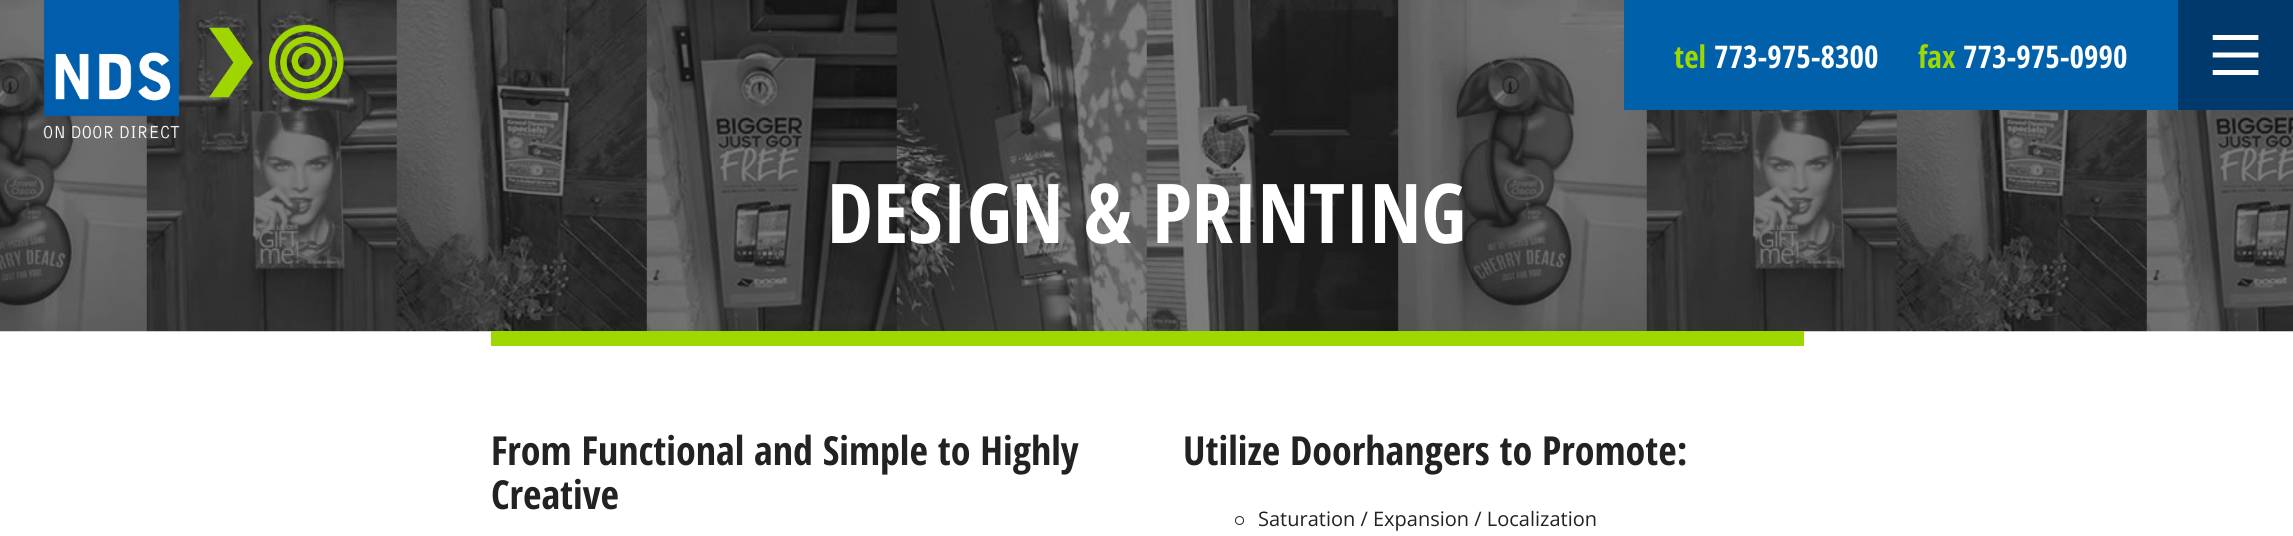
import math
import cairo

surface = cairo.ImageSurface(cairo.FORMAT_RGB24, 2293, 536)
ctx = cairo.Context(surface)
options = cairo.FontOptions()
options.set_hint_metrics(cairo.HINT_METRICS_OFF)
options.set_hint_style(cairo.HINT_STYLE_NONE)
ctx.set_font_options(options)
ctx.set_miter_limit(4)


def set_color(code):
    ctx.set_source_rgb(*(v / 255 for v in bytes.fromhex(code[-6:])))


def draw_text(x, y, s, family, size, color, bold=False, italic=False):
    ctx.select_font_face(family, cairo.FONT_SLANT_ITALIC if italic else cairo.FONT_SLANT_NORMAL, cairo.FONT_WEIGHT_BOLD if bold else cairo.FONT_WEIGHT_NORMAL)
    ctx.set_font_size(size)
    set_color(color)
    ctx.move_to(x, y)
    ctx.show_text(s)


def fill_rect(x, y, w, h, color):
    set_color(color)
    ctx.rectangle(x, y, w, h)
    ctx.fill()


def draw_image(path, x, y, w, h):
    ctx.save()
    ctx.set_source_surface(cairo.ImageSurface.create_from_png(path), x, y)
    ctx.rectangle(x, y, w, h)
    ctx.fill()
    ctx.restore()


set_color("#ffffff")
ctx.paint()
draw_image("assets/img3.png", 0, 0, 2293, 332)
draw_image("assets/img1.png", 43, 0, 301, 139)
fill_rect(1624, 0, 554, 110, "#0060aa")
draw_text(1674, 68, "tel", "Open Sans Condensed", 31.25, "#9ed800", bold=True)
draw_text(1714, 68, "773-975-8300", "Open Sans Condensed", 31.25, "#ffffff", bold=True)
draw_text(1918, 68, "fax", "Open Sans Condensed", 31.25, "#9ed800", bold=True)
draw_text(1963, 68, "773-975-0990", "Open Sans Condensed", 31.25, "#ffffff", bold=True)
fill_rect(2178, 0, 115, 110, "#00396c")
draw_image("assets/img2.png", 2212, 35, 47, 40)
draw_text(827, 243, "DESIGN & PRINTING", "Open Sans Condensed", 82.5, "#ffffff", bold=True)
fill_rect(491, 331, 1313, 15, "#9ed800")
draw_text(491, 465, "From Functional and Simple to Highly", "Open Sans Condensed", 40, "#222222", bold=True)
draw_text(491, 509, "Creative", "Open Sans Condensed", 40, "#222222", bold=True)
draw_text(1183, 465, "Utilize Doorhangers to Promote:", "Open Sans Condensed", 40, "#222222", bold=True)
ctx.new_path()
ctx.arc(1239.5, 520.5, 4, 0, 2 * math.pi)
ctx.set_line_width(1)
ctx.stroke()
draw_text(1258, 526, "Saturation / Expansion / Localization", "Open Sans", 20, "#222222")
surface.write_to_png("output.png")
